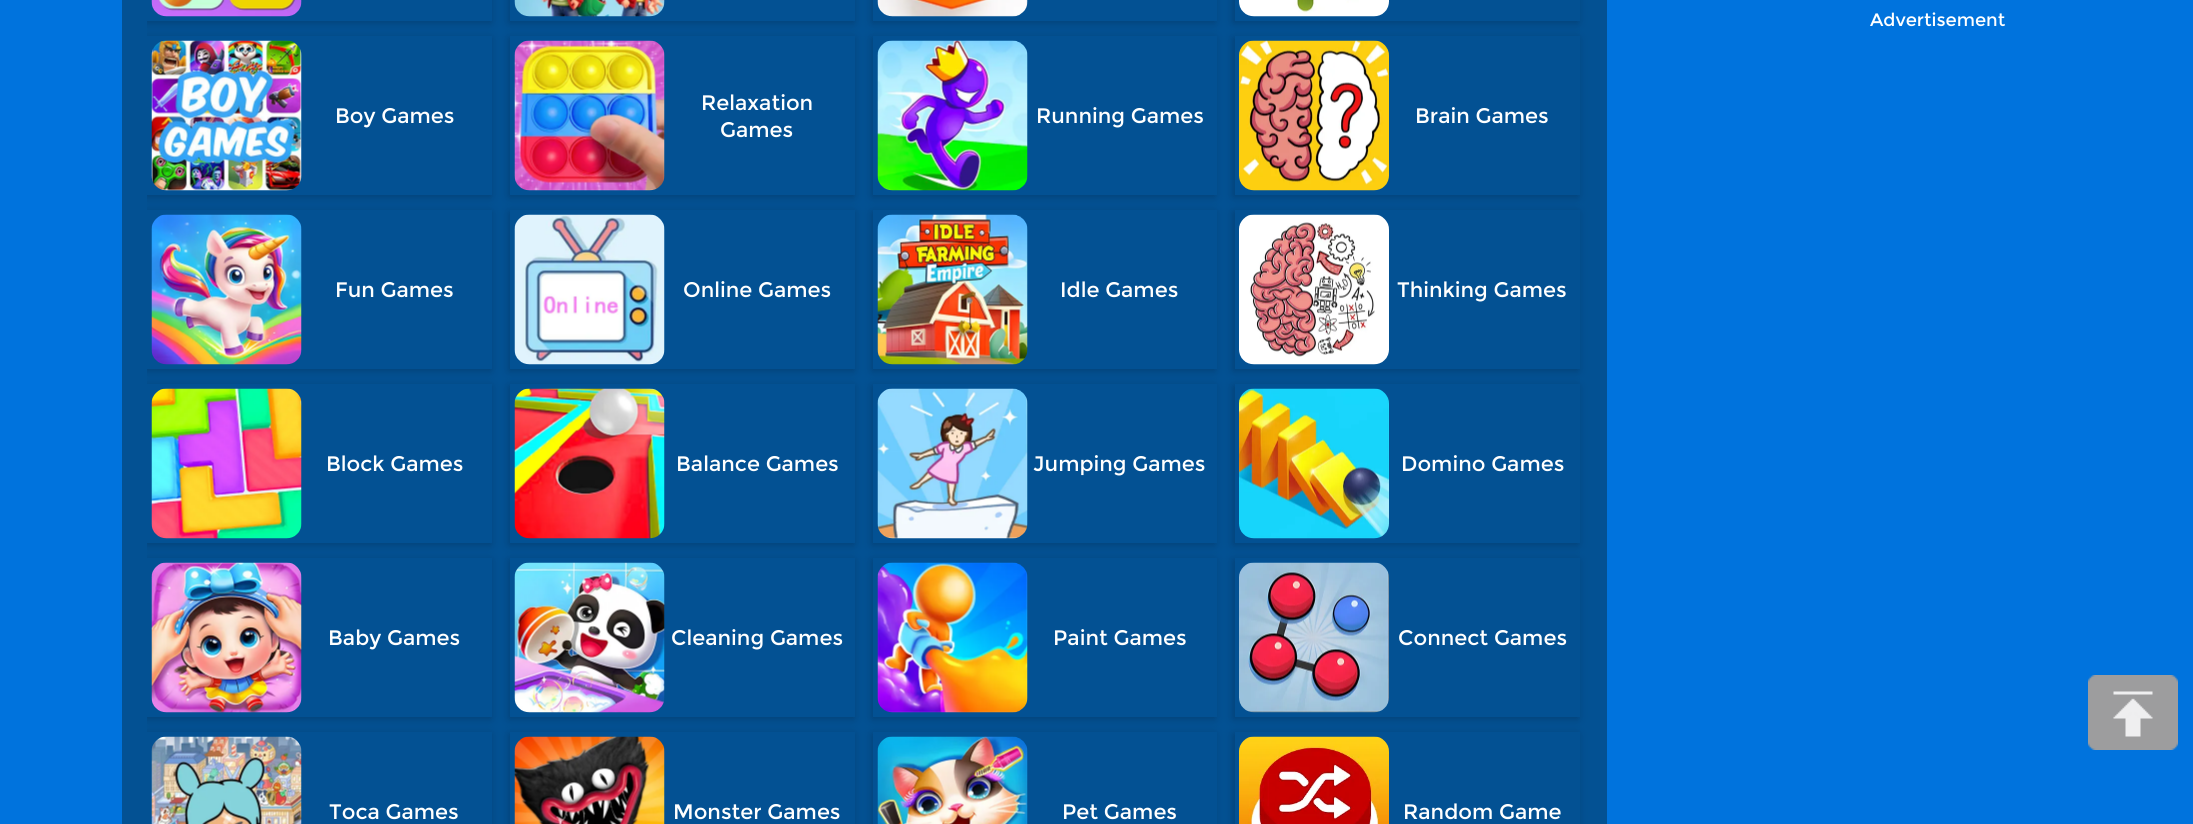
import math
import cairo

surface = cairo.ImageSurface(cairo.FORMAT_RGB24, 2193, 824)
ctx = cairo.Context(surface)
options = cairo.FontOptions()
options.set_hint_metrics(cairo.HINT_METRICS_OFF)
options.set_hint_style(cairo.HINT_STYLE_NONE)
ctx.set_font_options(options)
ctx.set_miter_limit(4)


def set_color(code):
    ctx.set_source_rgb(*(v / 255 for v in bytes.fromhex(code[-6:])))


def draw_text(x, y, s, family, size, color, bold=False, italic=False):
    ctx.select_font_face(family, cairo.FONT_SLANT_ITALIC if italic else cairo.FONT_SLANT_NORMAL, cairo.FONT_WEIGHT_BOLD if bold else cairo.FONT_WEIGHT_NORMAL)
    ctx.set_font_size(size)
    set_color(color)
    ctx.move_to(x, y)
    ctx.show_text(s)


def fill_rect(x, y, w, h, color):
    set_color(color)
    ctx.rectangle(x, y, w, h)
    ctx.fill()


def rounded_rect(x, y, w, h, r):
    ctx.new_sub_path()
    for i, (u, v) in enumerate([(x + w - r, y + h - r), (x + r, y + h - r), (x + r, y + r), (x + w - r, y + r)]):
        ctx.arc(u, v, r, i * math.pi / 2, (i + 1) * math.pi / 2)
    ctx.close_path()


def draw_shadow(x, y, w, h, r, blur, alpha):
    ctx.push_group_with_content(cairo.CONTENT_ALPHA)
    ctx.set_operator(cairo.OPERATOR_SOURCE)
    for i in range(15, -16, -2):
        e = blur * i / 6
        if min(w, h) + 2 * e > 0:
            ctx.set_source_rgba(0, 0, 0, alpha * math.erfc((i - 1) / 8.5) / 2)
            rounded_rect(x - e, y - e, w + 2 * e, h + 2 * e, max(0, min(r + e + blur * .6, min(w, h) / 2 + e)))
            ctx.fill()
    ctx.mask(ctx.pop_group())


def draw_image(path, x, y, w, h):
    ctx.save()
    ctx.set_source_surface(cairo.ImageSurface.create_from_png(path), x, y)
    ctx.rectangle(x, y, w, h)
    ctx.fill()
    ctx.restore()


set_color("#0073dd")
ctx.paint()
draw_text(1870, 26, "Advertisement", "Montserrat", 18, "#ffffff")
fill_rect(122, 0, 1485, 824, "#035193")
ctx.save()
ctx.rectangle(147, 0, 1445, 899)
ctx.clip()
ctx.set_fill_rule(cairo.FILL_RULE_EVEN_ODD)
ctx.new_path()
ctx.move_to(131, 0)
ctx.line_to(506, 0)
ctx.line_to(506, 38)
ctx.line_to(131, 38)
ctx.close_path()
ctx.move_to(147, -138)
ctx.line_to(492, -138)
ctx.line_to(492, 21)
ctx.line_to(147, 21)
ctx.close_path()
ctx.clip()
set_color("#000000")
draw_shadow(146, -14, 345, 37, 0, 4.5, 0.2)
ctx.restore()
draw_image("assets/img1.png", 151, 0, 151, 17)
ctx.save()
ctx.set_fill_rule(cairo.FILL_RULE_EVEN_ODD)
ctx.new_path()
ctx.move_to(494, 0)
ctx.line_to(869, 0)
ctx.line_to(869, 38)
ctx.line_to(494, 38)
ctx.close_path()
ctx.move_to(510, -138)
ctx.line_to(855, -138)
ctx.line_to(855, 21)
ctx.line_to(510, 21)
ctx.close_path()
ctx.clip()
set_color("#000000")
draw_shadow(509, -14, 345, 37, 0, 4.5, 0.2)
ctx.restore()
draw_image("assets/img2.png", 514, 0, 151, 17)
ctx.save()
ctx.set_fill_rule(cairo.FILL_RULE_EVEN_ODD)
ctx.new_path()
ctx.move_to(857, 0)
ctx.line_to(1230, 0)
ctx.line_to(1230, 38)
ctx.line_to(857, 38)
ctx.close_path()
ctx.move_to(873, -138)
ctx.line_to(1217, -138)
ctx.line_to(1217, 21)
ctx.line_to(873, 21)
ctx.close_path()
ctx.clip()
set_color("#000000")
draw_shadow(872, -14, 343, 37, 0, 4.5, 0.2)
ctx.restore()
draw_image("assets/img3.png", 877, 0, 151, 17)
ctx.save()
ctx.set_fill_rule(cairo.FILL_RULE_EVEN_ODD)
ctx.new_path()
ctx.move_to(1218, 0)
ctx.line_to(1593, 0)
ctx.line_to(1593, 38)
ctx.line_to(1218, 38)
ctx.close_path()
ctx.move_to(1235, -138)
ctx.line_to(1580, -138)
ctx.line_to(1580, 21)
ctx.line_to(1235, 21)
ctx.close_path()
ctx.clip()
set_color("#000000")
draw_shadow(1233, -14, 345, 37, 0, 4.5, 0.2)
ctx.restore()
draw_image("assets/img4.png", 1239, 0, 150, 17)
ctx.save()
ctx.rectangle(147, 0, 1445, 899)
ctx.clip()
ctx.set_fill_rule(cairo.FILL_RULE_EVEN_ODD)
ctx.new_path()
ctx.move_to(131, 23)
ctx.line_to(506, 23)
ctx.line_to(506, 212)
ctx.line_to(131, 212)
ctx.close_path()
ctx.move_to(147, 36)
ctx.line_to(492, 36)
ctx.line_to(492, 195)
ctx.line_to(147, 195)
ctx.close_path()
ctx.clip()
set_color("#000000")
draw_shadow(146, 38, 345, 159, 0, 4.5, 0.2)
ctx.restore()
draw_image("assets/img5.png", 151, 40, 151, 151)
draw_text(335, 123, "Boy Games", "Montserrat", 21, "#ffffff")
ctx.save()
ctx.set_fill_rule(cairo.FILL_RULE_EVEN_ODD)
ctx.new_path()
ctx.move_to(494, 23)
ctx.line_to(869, 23)
ctx.line_to(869, 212)
ctx.line_to(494, 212)
ctx.close_path()
ctx.move_to(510, 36)
ctx.line_to(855, 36)
ctx.line_to(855, 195)
ctx.line_to(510, 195)
ctx.close_path()
ctx.clip()
set_color("#000000")
draw_shadow(509, 38, 345, 159, 0, 4.5, 0.2)
ctx.restore()
draw_image("assets/img6.png", 514, 40, 151, 151)
draw_text(701, 110, "Relaxation", "Montserrat", 21, "#ffffff")
draw_text(720, 137, "Games", "Montserrat", 21, "#ffffff")
ctx.save()
ctx.set_fill_rule(cairo.FILL_RULE_EVEN_ODD)
ctx.new_path()
ctx.move_to(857, 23)
ctx.line_to(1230, 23)
ctx.line_to(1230, 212)
ctx.line_to(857, 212)
ctx.close_path()
ctx.move_to(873, 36)
ctx.line_to(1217, 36)
ctx.line_to(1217, 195)
ctx.line_to(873, 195)
ctx.close_path()
ctx.clip()
set_color("#000000")
draw_shadow(872, 38, 343, 159, 0, 4.5, 0.2)
ctx.restore()
draw_image("assets/img7.png", 877, 40, 151, 151)
draw_text(1036, 123, "Running Games", "Montserrat", 21, "#ffffff")
ctx.save()
ctx.set_fill_rule(cairo.FILL_RULE_EVEN_ODD)
ctx.new_path()
ctx.move_to(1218, 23)
ctx.line_to(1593, 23)
ctx.line_to(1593, 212)
ctx.line_to(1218, 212)
ctx.close_path()
ctx.move_to(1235, 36)
ctx.line_to(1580, 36)
ctx.line_to(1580, 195)
ctx.line_to(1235, 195)
ctx.close_path()
ctx.clip()
set_color("#000000")
draw_shadow(1233, 38, 345, 159, 0, 4.5, 0.2)
ctx.restore()
draw_image("assets/img8.png", 1239, 40, 150, 151)
draw_text(1415, 123, "Brain Games", "Montserrat", 21, "#ffffff")
ctx.save()
ctx.rectangle(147, 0, 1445, 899)
ctx.clip()
ctx.set_fill_rule(cairo.FILL_RULE_EVEN_ODD)
ctx.new_path()
ctx.move_to(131, 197)
ctx.line_to(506, 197)
ctx.line_to(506, 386)
ctx.line_to(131, 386)
ctx.close_path()
ctx.move_to(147, 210)
ctx.line_to(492, 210)
ctx.line_to(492, 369)
ctx.line_to(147, 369)
ctx.close_path()
ctx.clip()
set_color("#000000")
draw_shadow(146, 212, 345, 159, 0, 4.5, 0.2)
ctx.restore()
draw_image("assets/img9.png", 151, 214, 151, 151)
draw_text(335, 297, "Fun Games", "Montserrat", 21, "#ffffff")
ctx.save()
ctx.set_fill_rule(cairo.FILL_RULE_EVEN_ODD)
ctx.new_path()
ctx.move_to(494, 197)
ctx.line_to(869, 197)
ctx.line_to(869, 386)
ctx.line_to(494, 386)
ctx.close_path()
ctx.move_to(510, 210)
ctx.line_to(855, 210)
ctx.line_to(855, 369)
ctx.line_to(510, 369)
ctx.close_path()
ctx.clip()
set_color("#000000")
draw_shadow(509, 212, 345, 159, 0, 4.5, 0.2)
ctx.restore()
draw_image("assets/img10.png", 514, 214, 151, 151)
draw_text(683, 297, "Online Games", "Montserrat", 21, "#ffffff")
ctx.save()
ctx.set_fill_rule(cairo.FILL_RULE_EVEN_ODD)
ctx.new_path()
ctx.move_to(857, 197)
ctx.line_to(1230, 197)
ctx.line_to(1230, 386)
ctx.line_to(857, 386)
ctx.close_path()
ctx.move_to(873, 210)
ctx.line_to(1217, 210)
ctx.line_to(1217, 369)
ctx.line_to(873, 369)
ctx.close_path()
ctx.clip()
set_color("#000000")
draw_shadow(872, 212, 343, 159, 0, 4.5, 0.2)
ctx.restore()
draw_image("assets/img11.png", 877, 214, 151, 151)
draw_text(1060, 297, "Idle Games", "Montserrat", 21, "#ffffff")
ctx.save()
ctx.set_fill_rule(cairo.FILL_RULE_EVEN_ODD)
ctx.new_path()
ctx.move_to(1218, 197)
ctx.line_to(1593, 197)
ctx.line_to(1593, 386)
ctx.line_to(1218, 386)
ctx.close_path()
ctx.move_to(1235, 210)
ctx.line_to(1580, 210)
ctx.line_to(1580, 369)
ctx.line_to(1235, 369)
ctx.close_path()
ctx.clip()
set_color("#000000")
draw_shadow(1233, 212, 345, 159, 0, 4.5, 0.2)
ctx.restore()
draw_image("assets/img12.png", 1239, 214, 150, 151)
draw_text(1397, 297, "Thinking Games", "Montserrat", 21, "#ffffff")
ctx.save()
ctx.rectangle(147, 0, 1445, 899)
ctx.clip()
ctx.set_fill_rule(cairo.FILL_RULE_EVEN_ODD)
ctx.new_path()
ctx.move_to(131, 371)
ctx.line_to(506, 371)
ctx.line_to(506, 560)
ctx.line_to(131, 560)
ctx.close_path()
ctx.move_to(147, 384)
ctx.line_to(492, 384)
ctx.line_to(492, 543)
ctx.line_to(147, 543)
ctx.close_path()
ctx.clip()
set_color("#000000")
draw_shadow(146, 386, 345, 159, 0, 4.5, 0.2)
ctx.restore()
draw_image("assets/img13.png", 151, 388, 151, 151)
draw_text(326, 471, "Block Games", "Montserrat", 21, "#ffffff")
ctx.save()
ctx.set_fill_rule(cairo.FILL_RULE_EVEN_ODD)
ctx.new_path()
ctx.move_to(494, 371)
ctx.line_to(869, 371)
ctx.line_to(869, 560)
ctx.line_to(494, 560)
ctx.close_path()
ctx.move_to(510, 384)
ctx.line_to(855, 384)
ctx.line_to(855, 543)
ctx.line_to(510, 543)
ctx.close_path()
ctx.clip()
set_color("#000000")
draw_shadow(509, 386, 345, 159, 0, 4.5, 0.2)
ctx.restore()
draw_image("assets/img14.png", 514, 388, 151, 151)
draw_text(676, 471, "Balance Games", "Montserrat", 21, "#ffffff")
ctx.save()
ctx.set_fill_rule(cairo.FILL_RULE_EVEN_ODD)
ctx.new_path()
ctx.move_to(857, 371)
ctx.line_to(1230, 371)
ctx.line_to(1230, 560)
ctx.line_to(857, 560)
ctx.close_path()
ctx.move_to(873, 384)
ctx.line_to(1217, 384)
ctx.line_to(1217, 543)
ctx.line_to(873, 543)
ctx.close_path()
ctx.clip()
set_color("#000000")
draw_shadow(872, 386, 343, 159, 0, 4.5, 0.2)
ctx.restore()
draw_image("assets/img15.png", 877, 388, 151, 151)
draw_text(1033, 471, "Jumping Games", "Montserrat", 21, "#ffffff")
ctx.save()
ctx.set_fill_rule(cairo.FILL_RULE_EVEN_ODD)
ctx.new_path()
ctx.move_to(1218, 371)
ctx.line_to(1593, 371)
ctx.line_to(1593, 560)
ctx.line_to(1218, 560)
ctx.close_path()
ctx.move_to(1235, 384)
ctx.line_to(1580, 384)
ctx.line_to(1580, 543)
ctx.line_to(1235, 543)
ctx.close_path()
ctx.clip()
set_color("#000000")
draw_shadow(1233, 386, 345, 159, 0, 4.5, 0.2)
ctx.restore()
draw_image("assets/img16.png", 1239, 388, 150, 151)
draw_text(1401, 471, "Domino Games", "Montserrat", 21, "#ffffff")
ctx.save()
ctx.rectangle(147, 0, 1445, 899)
ctx.clip()
ctx.set_fill_rule(cairo.FILL_RULE_EVEN_ODD)
ctx.new_path()
ctx.move_to(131, 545)
ctx.line_to(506, 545)
ctx.line_to(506, 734)
ctx.line_to(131, 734)
ctx.close_path()
ctx.move_to(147, 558)
ctx.line_to(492, 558)
ctx.line_to(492, 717)
ctx.line_to(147, 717)
ctx.close_path()
ctx.clip()
set_color("#000000")
draw_shadow(146, 560, 345, 159, 0, 4.5, 0.2)
ctx.restore()
draw_image("assets/img17.png", 151, 562, 151, 151)
draw_text(328, 645, "Baby Games", "Montserrat", 21, "#ffffff")
ctx.save()
ctx.set_fill_rule(cairo.FILL_RULE_EVEN_ODD)
ctx.new_path()
ctx.move_to(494, 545)
ctx.line_to(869, 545)
ctx.line_to(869, 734)
ctx.line_to(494, 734)
ctx.close_path()
ctx.move_to(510, 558)
ctx.line_to(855, 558)
ctx.line_to(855, 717)
ctx.line_to(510, 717)
ctx.close_path()
ctx.clip()
set_color("#000000")
draw_shadow(509, 560, 345, 159, 0, 4.5, 0.2)
ctx.restore()
draw_image("assets/img18.png", 514, 562, 151, 151)
draw_text(671, 645, "Cleaning Games", "Montserrat", 21, "#ffffff")
ctx.save()
ctx.set_fill_rule(cairo.FILL_RULE_EVEN_ODD)
ctx.new_path()
ctx.move_to(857, 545)
ctx.line_to(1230, 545)
ctx.line_to(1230, 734)
ctx.line_to(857, 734)
ctx.close_path()
ctx.move_to(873, 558)
ctx.line_to(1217, 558)
ctx.line_to(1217, 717)
ctx.line_to(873, 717)
ctx.close_path()
ctx.clip()
set_color("#000000")
draw_shadow(872, 560, 343, 159, 0, 4.5, 0.2)
ctx.restore()
draw_image("assets/img19.png", 877, 562, 151, 151)
draw_text(1053, 645, "Paint Games", "Montserrat", 21, "#ffffff")
ctx.save()
ctx.set_fill_rule(cairo.FILL_RULE_EVEN_ODD)
ctx.new_path()
ctx.move_to(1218, 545)
ctx.line_to(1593, 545)
ctx.line_to(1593, 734)
ctx.line_to(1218, 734)
ctx.close_path()
ctx.move_to(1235, 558)
ctx.line_to(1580, 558)
ctx.line_to(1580, 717)
ctx.line_to(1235, 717)
ctx.close_path()
ctx.clip()
set_color("#000000")
draw_shadow(1233, 560, 345, 159, 0, 4.5, 0.2)
ctx.restore()
draw_image("assets/img20.png", 1239, 562, 150, 151)
draw_text(1398, 645, "Connect Games", "Montserrat", 21, "#ffffff")
ctx.save()
ctx.rectangle(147, 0, 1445, 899)
ctx.clip()
ctx.set_fill_rule(cairo.FILL_RULE_EVEN_ODD)
ctx.new_path()
ctx.move_to(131, 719)
ctx.line_to(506, 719)
ctx.line_to(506, 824)
ctx.line_to(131, 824)
ctx.close_path()
ctx.move_to(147, 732)
ctx.line_to(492, 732)
ctx.line_to(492, 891)
ctx.line_to(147, 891)
ctx.close_path()
ctx.clip()
set_color("#000000")
draw_shadow(146, 734, 345, 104, 0, 4.5, 0.2)
ctx.restore()
draw_image("assets/img21.png", 151, 736, 151, 88)
draw_text(329, 819, "Toca Games", "Montserrat", 21, "#ffffff")
ctx.save()
ctx.set_fill_rule(cairo.FILL_RULE_EVEN_ODD)
ctx.new_path()
ctx.move_to(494, 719)
ctx.line_to(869, 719)
ctx.line_to(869, 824)
ctx.line_to(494, 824)
ctx.close_path()
ctx.move_to(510, 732)
ctx.line_to(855, 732)
ctx.line_to(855, 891)
ctx.line_to(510, 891)
ctx.close_path()
ctx.clip()
set_color("#000000")
draw_shadow(509, 734, 345, 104, 0, 4.5, 0.2)
ctx.restore()
draw_image("assets/img22.png", 514, 736, 151, 88)
draw_text(673, 819, "Monster Games", "Montserrat", 21, "#ffffff")
ctx.save()
ctx.set_fill_rule(cairo.FILL_RULE_EVEN_ODD)
ctx.new_path()
ctx.move_to(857, 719)
ctx.line_to(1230, 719)
ctx.line_to(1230, 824)
ctx.line_to(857, 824)
ctx.close_path()
ctx.move_to(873, 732)
ctx.line_to(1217, 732)
ctx.line_to(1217, 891)
ctx.line_to(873, 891)
ctx.close_path()
ctx.clip()
set_color("#000000")
draw_shadow(872, 734, 343, 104, 0, 4.5, 0.2)
ctx.restore()
draw_image("assets/img23.png", 877, 736, 151, 88)
draw_text(1062, 819, "Pet Games", "Montserrat", 21, "#ffffff")
ctx.save()
ctx.set_fill_rule(cairo.FILL_RULE_EVEN_ODD)
ctx.new_path()
ctx.move_to(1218, 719)
ctx.line_to(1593, 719)
ctx.line_to(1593, 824)
ctx.line_to(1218, 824)
ctx.close_path()
ctx.move_to(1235, 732)
ctx.line_to(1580, 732)
ctx.line_to(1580, 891)
ctx.line_to(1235, 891)
ctx.close_path()
ctx.clip()
set_color("#000000")
draw_shadow(1233, 734, 345, 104, 0, 4.5, 0.2)
ctx.restore()
draw_image("assets/img24.png", 1239, 736, 150, 88)
draw_text(1403, 819, "Random Game", "Montserrat", 21, "#ffffff")
draw_image("assets/img25.png", 2088, 675, 90, 75)
surface.write_to_png("output.png")
